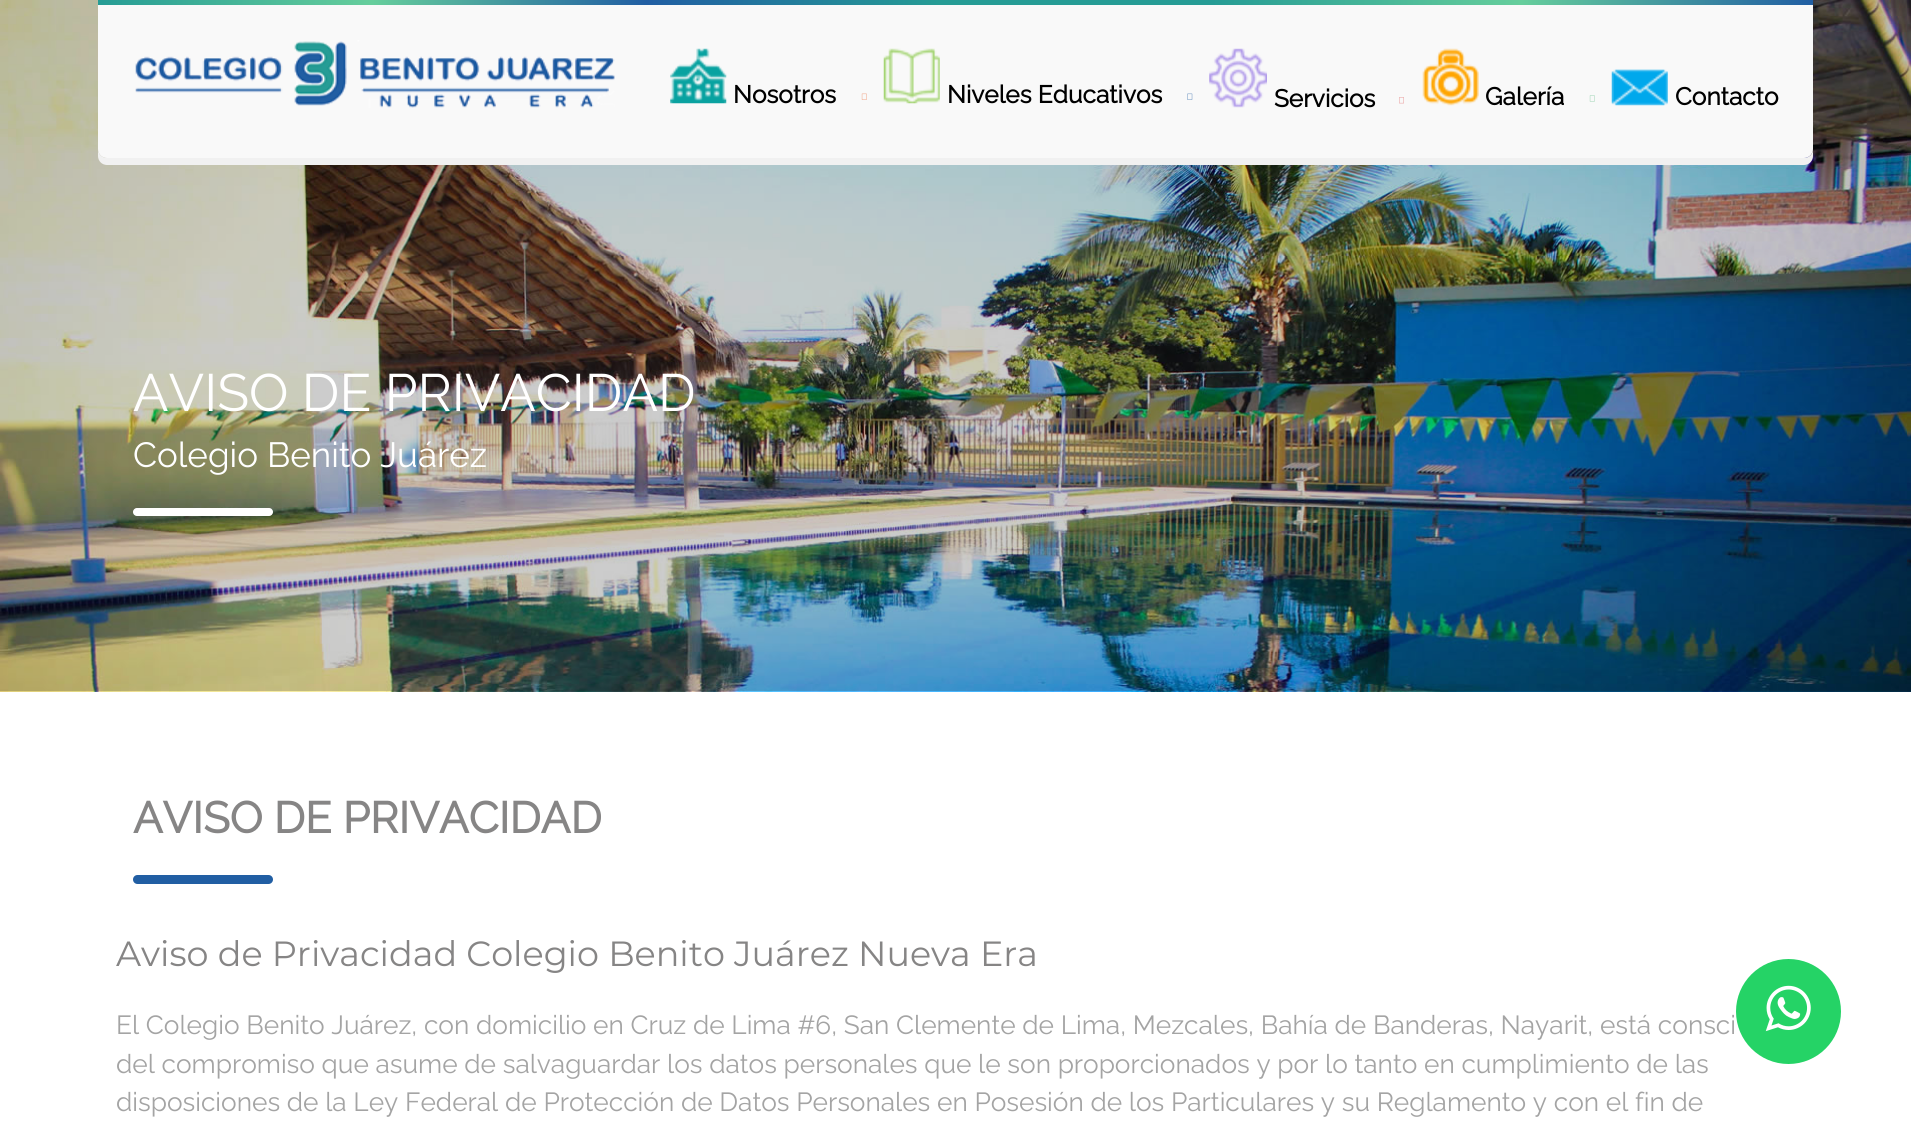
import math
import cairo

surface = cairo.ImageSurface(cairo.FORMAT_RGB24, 1911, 1133)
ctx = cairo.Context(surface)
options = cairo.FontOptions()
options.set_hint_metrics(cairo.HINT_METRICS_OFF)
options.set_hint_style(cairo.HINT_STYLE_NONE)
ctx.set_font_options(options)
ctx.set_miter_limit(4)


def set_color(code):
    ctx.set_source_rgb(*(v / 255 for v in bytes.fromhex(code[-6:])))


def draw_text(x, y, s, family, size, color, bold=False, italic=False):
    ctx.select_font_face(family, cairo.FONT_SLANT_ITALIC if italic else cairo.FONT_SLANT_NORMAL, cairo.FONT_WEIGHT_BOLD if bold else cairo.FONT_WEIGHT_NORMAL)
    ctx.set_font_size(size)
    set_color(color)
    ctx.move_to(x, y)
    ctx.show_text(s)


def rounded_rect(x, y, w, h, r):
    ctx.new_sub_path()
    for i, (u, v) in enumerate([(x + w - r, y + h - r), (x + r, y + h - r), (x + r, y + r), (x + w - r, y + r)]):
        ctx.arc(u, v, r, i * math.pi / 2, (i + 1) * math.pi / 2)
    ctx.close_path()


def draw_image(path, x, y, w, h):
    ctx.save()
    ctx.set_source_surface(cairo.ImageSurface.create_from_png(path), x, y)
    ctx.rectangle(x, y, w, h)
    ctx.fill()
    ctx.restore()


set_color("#ffffff")
ctx.paint()
draw_image("assets/img11.png", 0, 0, 1911, 692)
gradient = cairo.LinearGradient(98, 2.6, 1813, 2.6)
gradient.add_color_stop_rgba(0, 0.149, 0.612, 0.584, 1)
gradient.add_color_stop_rgba(0.16, 0.4, 0.808, 0.612, 1)
gradient.add_color_stop_rgba(0.32, 0.129, 0.369, 0.639, 1)
gradient.add_color_stop_rgba(0.49, 0.149, 0.612, 0.584, 1)
gradient.add_color_stop_rgba(0.65, 0.149, 0.612, 0.584, 1)
gradient.add_color_stop_rgba(0.83, 0.4, 0.808, 0.612, 1)
gradient.add_color_stop_rgba(1, 0.129, 0.369, 0.639, 1)
ctx.set_source(gradient)
ctx.rectangle(98, 0, 1715, 5)
ctx.fill()
set_color("#f1f1f1")
ctx.new_path()
ctx.move_to(98, 149)
ctx.line_to(98, 156)
ctx.curve_to(98, 161, 102, 165, 107, 165)
ctx.line_to(1804, 165)
ctx.curve_to(1809, 165, 1813, 161, 1813, 156)
ctx.line_to(1813, 149)
ctx.curve_to(1813, 154, 1809, 158, 1804, 158)
ctx.line_to(107, 158)
ctx.curve_to(102, 158, 98, 154, 98, 149)
ctx.close_path()
ctx.fill()
set_color("#f9f9f9")
ctx.new_path()
ctx.move_to(98, 5)
ctx.line_to(1813, 5)
ctx.line_to(1813, 149)
ctx.curve_to(1813, 154, 1809, 158, 1804, 158)
ctx.line_to(107, 158)
ctx.curve_to(102, 158, 98, 154, 98, 149)
ctx.close_path()
ctx.fill()
draw_image("assets/img1.png", 135, 40, 480, 68)
draw_image("assets/img2.png", 670, 48, 57, 56)
draw_text(733, 103, "Nosotros", "Raleway", 24.5, "#000000", bold=True)
draw_image("assets/img3.png", 861, 93, 6, 7)
draw_image("assets/img4.png", 883, 48, 57, 56)
draw_text(947, 103, "Niveles Educativos", "Raleway", 24.5, "#000000", bold=True)
draw_image("assets/img5.png", 1187, 93, 6, 7)
draw_image("assets/img6.png", 1209, 48, 58, 60)
draw_text(1274, 107, "Servicios", "Raleway", 24.5, "#000000", bold=True)
draw_image("assets/img7.png", 1399, 97, 5, 7)
draw_image("assets/img8.png", 1422, 48, 57, 58)
draw_text(1485, 105, "Galería", "Raleway", 24.5, "#000000", bold=True)
draw_image("assets/img9.png", 1589, 95, 6, 7)
draw_image("assets/img10.png", 1611, 69, 57, 37)
draw_text(1675, 105, "Contacto", "Raleway", 24.5, "#000000", bold=True)
draw_text(133, 411, "AVISO DE PRIVACIDAD", "Raleway Thin", 52.5, "#ffffff")
draw_text(133, 467, "Colegio Benito Juárez", "Raleway Thin", 35, "#ffffff")
rounded_rect(133, 508, 140, 8, 4)
ctx.fill()
draw_text(133, 833, "AVISO DE PRIVACIDAD", "Raleway", 43.75, "#868585", bold=True)
set_color("#215ea3")
rounded_rect(133, 875, 140, 9, 4.5)
ctx.fill()
draw_text(116, 966, "Aviso de Privacidad Colegio Benito Juárez Nueva Era", "Montserrat", 35, "#868585")
draw_text(116, 1034, "El Colegio Benito Juárez, con domicilio en Cruz de Lima #6, San Clemente de Lima, Mezcales, Bahía de Banderas, Nayarit, está consci", "Raleway Thin", 26.25, "#a4a4a4")
draw_text(116, 1073, "del compromiso que asume de salvaguardar los datos personales que le son proporcionados y por lo tanto en cumplimiento de las", "Raleway Thin", 26.25, "#a4a4a4")
draw_text(116, 1111, "disposiciones de la Ley Federal de Protección de Datos Personales en Posesión de los Particulares y su Reglamento y con el fin de", "Raleway Thin", 26.25, "#a4a4a4")
set_color("#25d366")
ctx.new_path()
ctx.arc(1788.5, 1011.5, 52.5, 0, 2 * math.pi)
ctx.fill()
draw_image("assets/img12.png", 1765, 985, 46, 47)
surface.write_to_png("output.png")
